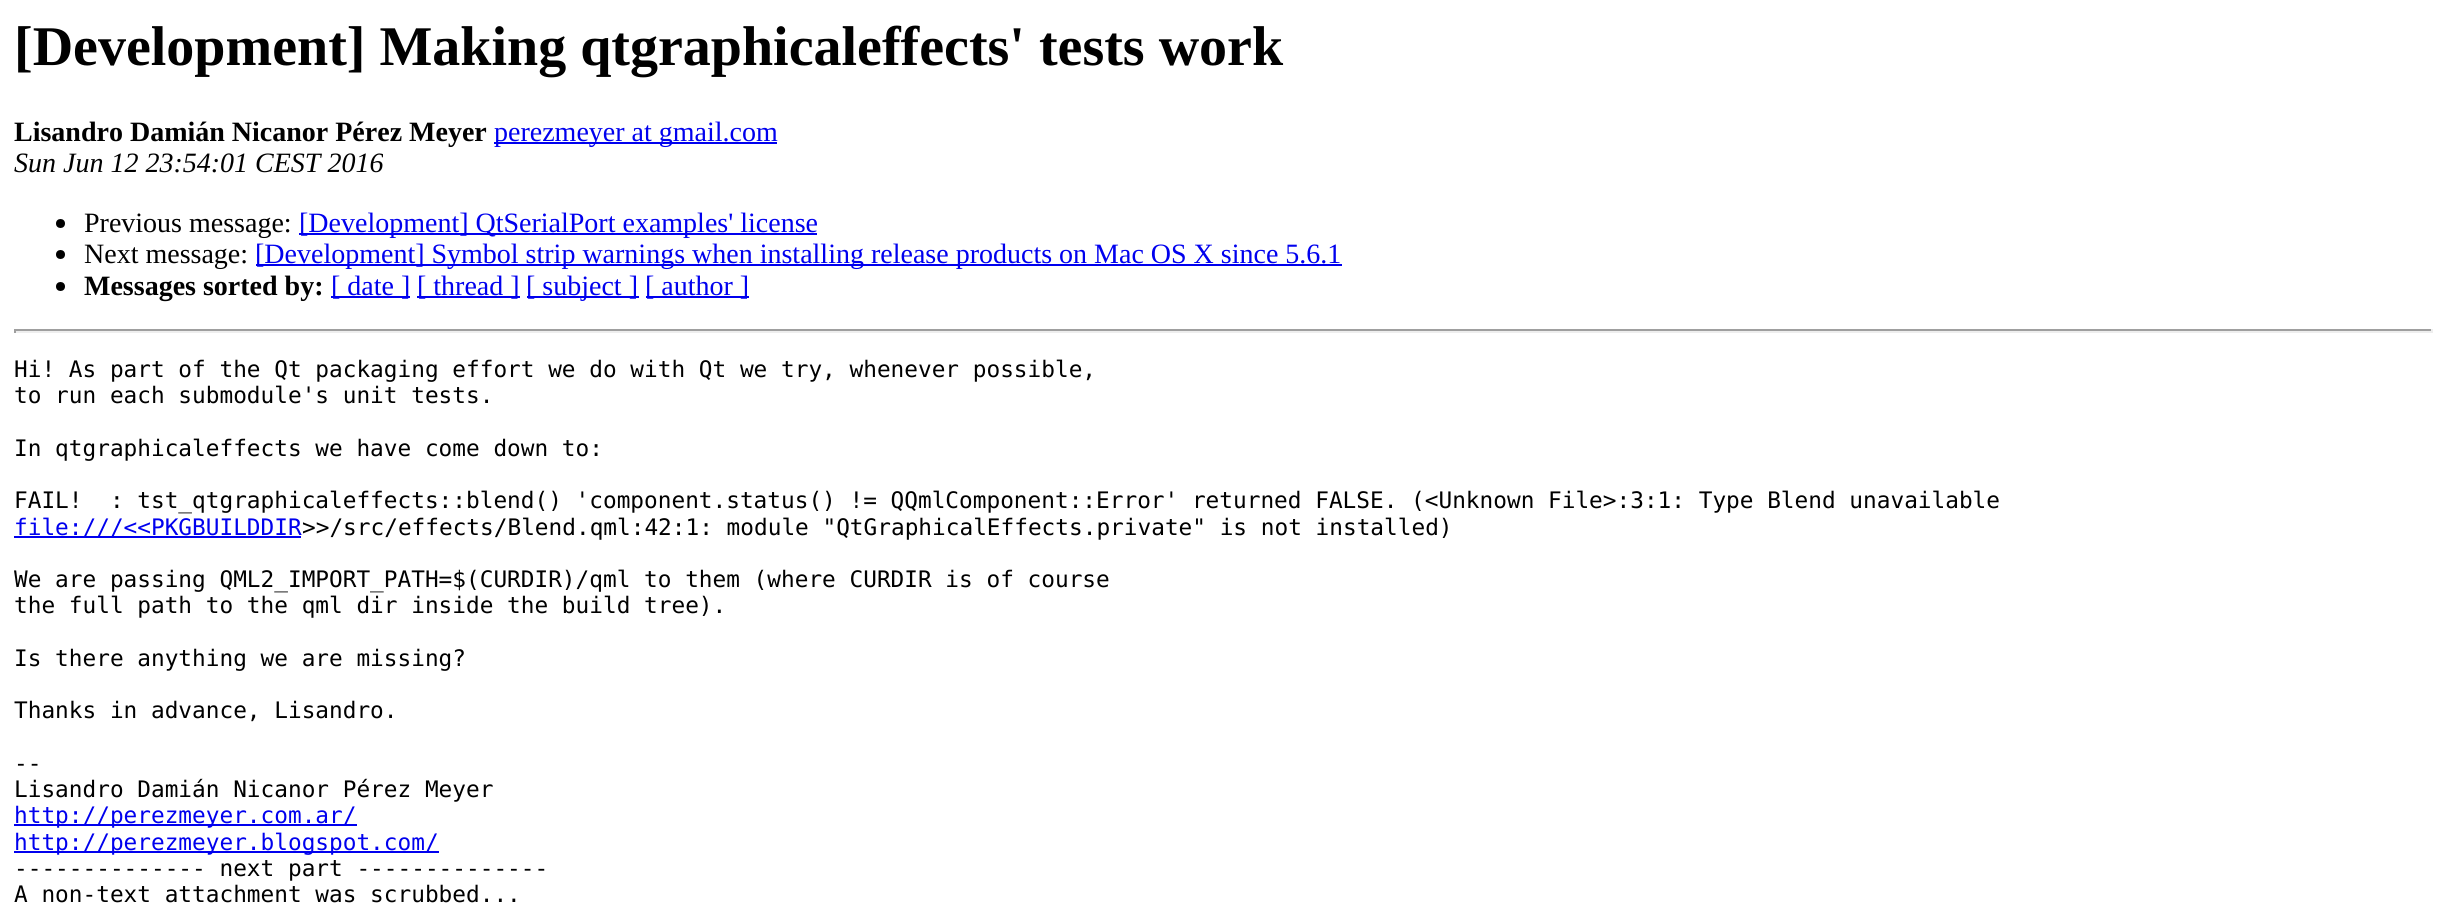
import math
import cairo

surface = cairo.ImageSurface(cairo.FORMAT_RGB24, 2445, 914)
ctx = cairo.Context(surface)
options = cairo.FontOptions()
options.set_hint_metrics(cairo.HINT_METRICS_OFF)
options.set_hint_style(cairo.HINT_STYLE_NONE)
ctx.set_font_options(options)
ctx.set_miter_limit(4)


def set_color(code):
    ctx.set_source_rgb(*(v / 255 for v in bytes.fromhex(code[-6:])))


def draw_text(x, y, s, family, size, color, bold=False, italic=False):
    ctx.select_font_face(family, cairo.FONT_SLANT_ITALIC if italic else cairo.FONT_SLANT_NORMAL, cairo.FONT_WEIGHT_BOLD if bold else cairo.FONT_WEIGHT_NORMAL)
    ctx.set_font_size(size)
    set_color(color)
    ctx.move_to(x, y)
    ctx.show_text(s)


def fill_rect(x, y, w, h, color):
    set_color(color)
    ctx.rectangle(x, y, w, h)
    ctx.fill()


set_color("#ffffff")
ctx.paint()
draw_text(14, 65, "[Development] Making qtgraphicaleffects' tests work", "Liberation Serif", 56, "#000000", bold=True)
draw_text(14, 141, "Lisandro Damián Nicanor Pérez Meyer", "Liberation Serif", 28, "#000000", bold=True)
fill_rect(494, 142, 283, 2, "#0000ee")
draw_text(494, 141, "perezmeyer at gmail.com", "Liberation Serif", 28, "#0000ee")
draw_text(14, 172, "Sun Jun 12 23:54:01 CEST 2016", "Liberation Serif", 28, "#000000", italic=True)
ctx.new_path()
ctx.arc(60.5, 223.5, 4.5, 0, 2 * math.pi)
ctx.fill()
draw_text(84, 232, "Previous message:", "Liberation Serif", 28, "#000000")
fill_rect(299, 233, 518, 2, "#0000ee")
draw_text(299, 232, "[Development] QtSerialPort examples' license", "Liberation Serif", 28, "#0000ee")
set_color("#000000")
ctx.new_path()
ctx.arc(60.5, 254.5, 4.5, 0, 2 * math.pi)
ctx.fill()
draw_text(84, 263, "Next message:", "Liberation Serif", 28, "#000000")
fill_rect(256, 264, 1086, 2, "#0000ee")
draw_text(255, 263, "[Development] Symbol strip warnings when installing release products on Mac OS X since 5.6.1", "Liberation Serif", 28, "#0000ee")
set_color("#000000")
ctx.new_path()
ctx.arc(60.5, 286.5, 4.5, 0, 2 * math.pi)
ctx.fill()
draw_text(84, 295, "Messages sorted by:", "Liberation Serif", 28, "#000000", bold=True)
fill_rect(331, 296, 79, 2, "#0000ee")
draw_text(331, 295, "[ date ]", "Liberation Serif", 28, "#0000ee")
fill_rect(417, 296, 103, 2, "#0000ee")
draw_text(417, 295, "[ thread ]", "Liberation Serif", 28, "#0000ee")
fill_rect(527, 296, 112, 2, "#0000ee")
draw_text(526, 295, "[ subject ]", "Liberation Serif", 28, "#0000ee")
fill_rect(646, 296, 103, 2, "#0000ee")
draw_text(645, 295, "[ author ]", "Liberation Serif", 28, "#0000ee")
fill_rect(14, 329, 2419, 2, "#9f9f9f")
fill_rect(2431, 329, 2, 4, "#eeeeee")
fill_rect(14, 331, 2419, 2, "#eeeeee")
fill_rect(14, 329, 2, 4, "#9f9f9f")
draw_text(14, 377, "Hi! As part of the Qt packaging effort we do with Qt we try, whenever possible,", "DejaVu Sans Mono", 22.75, "#000000")
draw_text(14, 403, "to run each submodule's unit tests.", "DejaVu Sans Mono", 22.75, "#000000")
draw_text(14, 456, "In qtgraphicaleffects we have come down to:", "DejaVu Sans Mono", 22.75, "#000000")
draw_text(14, 508, "FAIL!  : tst_qtgraphicaleffects::blend() 'component.status() != QQmlComponent::Error' returned FALSE. (<Unknown File>:3:1: Type Blend unavailable", "DejaVu Sans Mono", 22.75, "#000000")
fill_rect(14, 536, 287, 2, "#0000ee")
draw_text(14, 535, "file:///<<PKGBUILDDIR", "DejaVu Sans Mono", 22.75, "#0000ee")
draw_text(302, 535, ">>/src/effects/Blend.qml:42:1: module \"QtGraphicalEffects.private\" is not installed)", "DejaVu Sans Mono", 22.75, "#000000")
draw_text(14, 587, "We are passing QML2_IMPORT_PATH=$(CURDIR)/qml to them (where CURDIR is of course", "DejaVu Sans Mono", 22.75, "#000000")
draw_text(14, 613, "the full path to the qml dir inside the build tree).", "DejaVu Sans Mono", 22.75, "#000000")
draw_text(14, 666, "Is there anything we are missing?", "DejaVu Sans Mono", 22.75, "#000000")
draw_text(14, 718, "Thanks in advance, Lisandro.", "DejaVu Sans Mono", 22.75, "#000000")
draw_text(14, 771, "--", "DejaVu Sans Mono", 22.75, "#000000")
draw_text(14, 797, "Lisandro Damián Nicanor Pérez Meyer", "DejaVu Sans Mono", 22.75, "#000000")
fill_rect(14, 824, 343, 2, "#0000ee")
draw_text(14, 823, "http://perezmeyer.com.ar/", "DejaVu Sans Mono", 22.75, "#0000ee")
fill_rect(14, 851, 425, 2, "#0000ee")
draw_text(14, 850, "http://perezmeyer.blogspot.com/", "DejaVu Sans Mono", 22.75, "#0000ee")
draw_text(14, 876, "-------------- next part --------------", "DejaVu Sans Mono", 22.75, "#000000")
draw_text(14, 902, "A non-text attachment was scrubbed...", "DejaVu Sans Mono", 22.75, "#000000")
surface.write_to_png("output.png")
